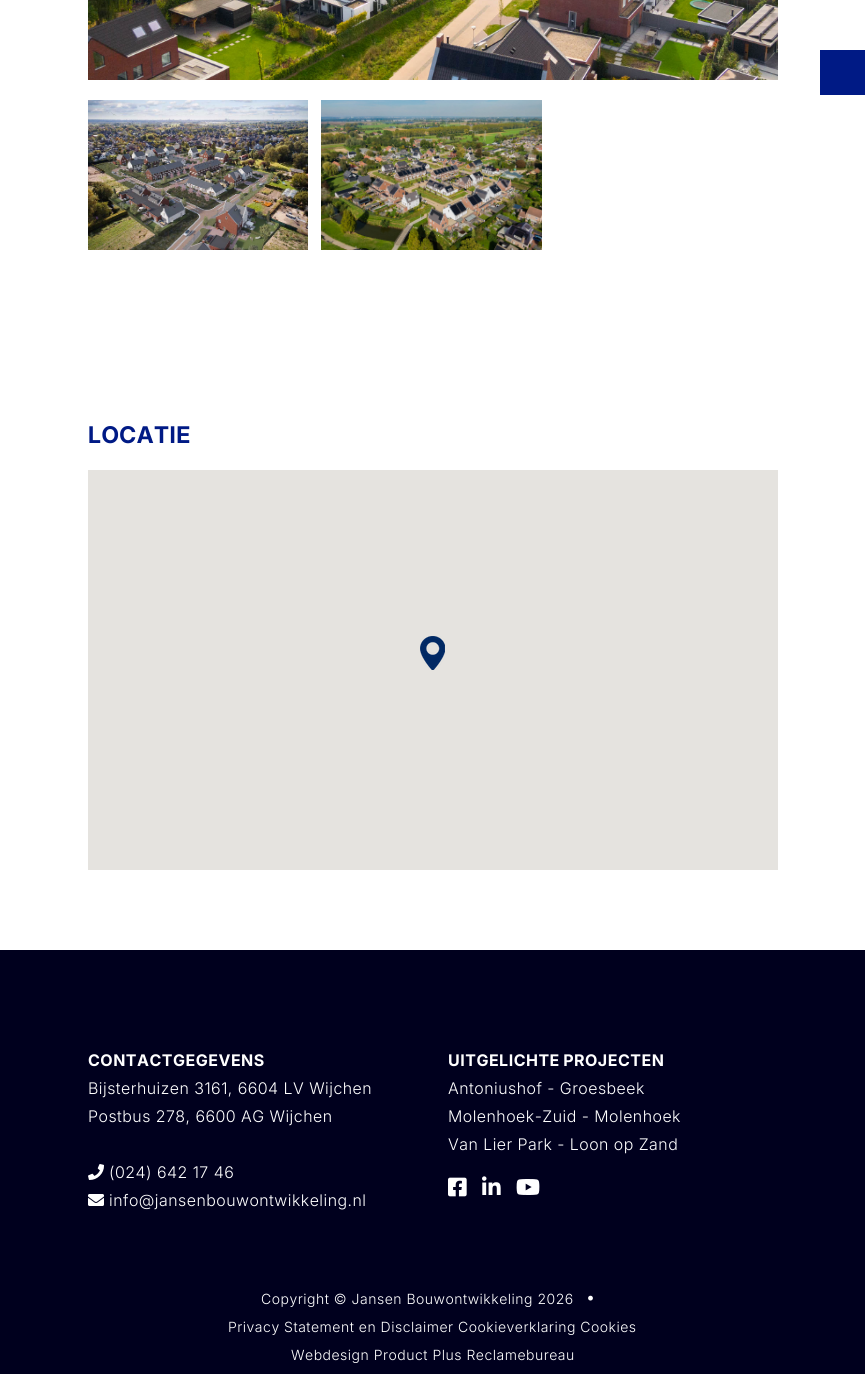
import math
import cairo

surface = cairo.ImageSurface(cairo.FORMAT_RGB24, 865, 1374)
ctx = cairo.Context(surface)
options = cairo.FontOptions()
options.set_hint_metrics(cairo.HINT_METRICS_OFF)
options.set_hint_style(cairo.HINT_STYLE_NONE)
ctx.set_font_options(options)
ctx.set_miter_limit(4)


def set_color(code):
    ctx.set_source_rgb(*(v / 255 for v in bytes.fromhex(code[-6:])))


def draw_spaced(x, y, s, letter, word):
    ctx.move_to(x, y)
    for ch in s:
        ctx.show_text(ch)
        ctx.rel_move_to(letter + word * (ch == ' '), 0)


def fill_rect(x, y, w, h, color):
    set_color(color)
    ctx.rectangle(x, y, w, h)
    ctx.fill()


def draw_image(path, x, y, w, h):
    ctx.save()
    ctx.set_source_surface(cairo.ImageSurface.create_from_png(path), x, y)
    ctx.rectangle(x, y, w, h)
    ctx.fill()
    ctx.restore()


set_color("#ffffff")
ctx.paint()
fill_rect(820, 50, 45, 45, "#001a85")
draw_image("assets/img1.png", 88, 0, 690, 80)
draw_image("assets/img2.png", 88, 100, 220, 150)
draw_image("assets/img3.png", 321, 100, 221, 150)
ctx.select_font_face("Inter", cairo.FONT_SLANT_NORMAL, cairo.FONT_WEIGHT_BOLD)
ctx.set_font_size(23)
draw_spaced(88, 443, "LOCATIE", 0.5, 0)
fill_rect(88, 470, 690, 400, "#e5e3df")
draw_image("assets/img4.png", 420, 636, 25, 34)
fill_rect(0, 950, 865, 424, "#00001e")
ctx.select_font_face("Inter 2", cairo.FONT_SLANT_NORMAL, cairo.FONT_WEIGHT_BOLD)
ctx.set_font_size(16)
set_color("#ffffff")
draw_spaced(88, 1066, "CONTACTGEGEVENS", 0.5, 0)
ctx.select_font_face("Inter Light")
draw_spaced(88, 1094, "Bijsterhuizen 3161, 6604 LV Wijchen", 0.5, 0)
draw_spaced(88, 1122, "Postbus 278, 6600 AG Wijchen", 0.5, 0)
draw_image("assets/img5.png", 88, 1164, 16, 16)
draw_spaced(109, 1178, "(024) 642 17 46", 0.5, 0)
draw_image("assets/img6.png", 88, 1194, 16, 12)
draw_spaced(109, 1206, "info@jansenbouwontwikkeling.nl", 0.5, 0)
ctx.select_font_face("Inter 2", cairo.FONT_SLANT_NORMAL, cairo.FONT_WEIGHT_BOLD)
draw_spaced(448, 1066, "UITGELICHTE PROJECTEN", 0.5, -1)
ctx.select_font_face("Inter Light")
draw_spaced(448, 1094, "Antoniushof - Groesbeek", 0.5, 0)
draw_spaced(448, 1122, "Molenhoek-Zuid - Molenhoek", 0.5, 0)
draw_spaced(448, 1150, "Van Lier Park - Loon op Zand", 0.5, 0)
draw_image("assets/img7.png", 448, 1177, 19, 20)
draw_image("assets/img8.png", 482, 1176, 19, 19)
draw_image("assets/img9.png", 516, 1179, 24, 16)
ctx.select_font_face("Inter 2 Light")
ctx.set_font_size(14)
draw_spaced(261, 1304, "Copyright © Jansen Bouwontwikkeling 2026", 0.5, 0)
draw_image("assets/img10.png", 588, 1295, 5, 6)
draw_spaced(228, 1332, "Privacy Statement en Disclaimer Cookieverklaring Cookies", 0.5, 0)
draw_spaced(291, 1360, "Webdesign Product Plus Reclamebureau", 0.5, 0)
surface.write_to_png("output.png")
